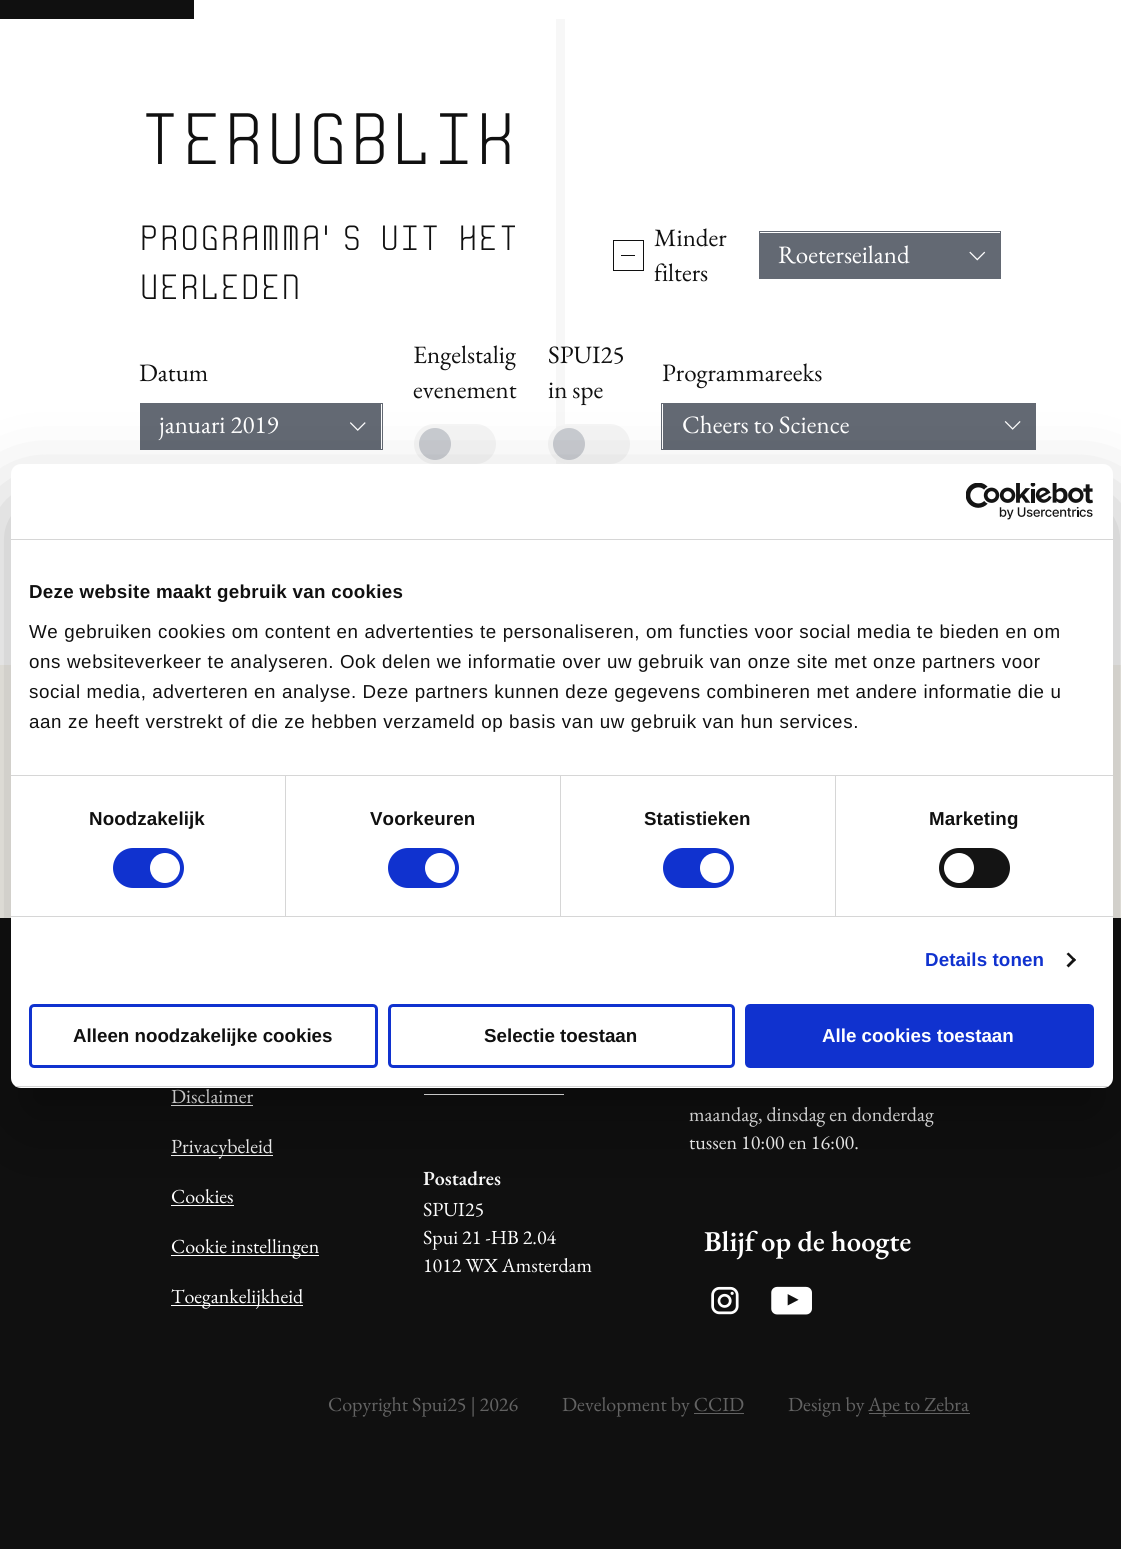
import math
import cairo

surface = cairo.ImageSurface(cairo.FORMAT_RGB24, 1121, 1549)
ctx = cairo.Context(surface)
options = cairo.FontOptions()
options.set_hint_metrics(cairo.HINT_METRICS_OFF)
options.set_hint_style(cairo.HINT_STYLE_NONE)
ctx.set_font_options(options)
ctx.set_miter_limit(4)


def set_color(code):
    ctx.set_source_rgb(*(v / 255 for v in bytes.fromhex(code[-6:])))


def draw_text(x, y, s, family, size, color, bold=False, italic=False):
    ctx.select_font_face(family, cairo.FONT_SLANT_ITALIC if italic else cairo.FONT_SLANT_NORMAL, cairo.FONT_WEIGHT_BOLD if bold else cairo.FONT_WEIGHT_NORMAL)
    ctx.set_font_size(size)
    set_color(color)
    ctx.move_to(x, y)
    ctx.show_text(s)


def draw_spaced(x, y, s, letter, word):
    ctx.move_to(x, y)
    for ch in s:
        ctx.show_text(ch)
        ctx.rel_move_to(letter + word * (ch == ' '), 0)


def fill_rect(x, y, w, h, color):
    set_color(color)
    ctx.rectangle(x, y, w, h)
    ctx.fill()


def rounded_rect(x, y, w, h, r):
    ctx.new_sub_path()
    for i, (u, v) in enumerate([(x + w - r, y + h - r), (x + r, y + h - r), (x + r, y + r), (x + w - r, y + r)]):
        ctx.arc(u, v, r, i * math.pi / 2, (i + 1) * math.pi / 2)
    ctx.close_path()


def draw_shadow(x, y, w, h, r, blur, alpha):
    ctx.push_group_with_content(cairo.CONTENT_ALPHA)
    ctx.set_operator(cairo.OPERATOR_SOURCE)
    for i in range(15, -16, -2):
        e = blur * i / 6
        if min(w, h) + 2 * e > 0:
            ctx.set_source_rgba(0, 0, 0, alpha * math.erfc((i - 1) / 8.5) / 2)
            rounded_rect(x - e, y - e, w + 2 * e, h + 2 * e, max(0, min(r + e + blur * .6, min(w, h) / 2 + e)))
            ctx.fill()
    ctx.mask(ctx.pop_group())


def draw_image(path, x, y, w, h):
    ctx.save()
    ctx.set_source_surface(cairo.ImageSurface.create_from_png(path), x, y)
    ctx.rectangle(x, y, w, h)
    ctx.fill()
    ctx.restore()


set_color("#ffffff")
ctx.paint()
fill_rect(0, 0, 194, 19, "#101010")
draw_text(139, 164, "Terugblik", "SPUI", 72.5, "#101010")
gradient = cairo.LinearGradient(120, 342, 1110, 342)
gradient.add_color_stop_rgba(0, 0.922, 0.922, 0.922, 0.4)
gradient.add_color_stop_rgba(0, 0.922, 0.922, 0.922, 0.4)
gradient.add_color_stop_rgba(0, 0.922, 0.922, 0.922, 0)
gradient.add_color_stop_rgba(0.11, 0.922, 0.922, 0.922, 0)
gradient.add_color_stop_rgba(0.11, 0.922, 0.922, 0.922, 0.4)
gradient.add_color_stop_rgba(0.11, 0.922, 0.922, 0.922, 0.4)
gradient.add_color_stop_rgba(0.11, 0.922, 0.922, 0.922, 0)
gradient.add_color_stop_rgba(0.22, 0.922, 0.922, 0.922, 0)
gradient.add_color_stop_rgba(0.22, 0.922, 0.922, 0.922, 0.4)
gradient.add_color_stop_rgba(0.22, 0.922, 0.922, 0.922, 0.4)
gradient.add_color_stop_rgba(0.22, 0.922, 0.922, 0.922, 0)
gradient.add_color_stop_rgba(0.33, 0.922, 0.922, 0.922, 0)
gradient.add_color_stop_rgba(0.33, 0.922, 0.922, 0.922, 0.4)
gradient.add_color_stop_rgba(0.33, 0.922, 0.922, 0.922, 0.4)
gradient.add_color_stop_rgba(0.33, 0.922, 0.922, 0.922, 0)
gradient.add_color_stop_rgba(0.44, 0.922, 0.922, 0.922, 0)
gradient.add_color_stop_rgba(0.44, 0.922, 0.922, 0.922, 0.4)
gradient.add_color_stop_rgba(0.45, 0.922, 0.922, 0.922, 0.4)
gradient.add_color_stop_rgba(0.45, 0.922, 0.922, 0.922, 0)
gradient.add_color_stop_rgba(0.56, 0.922, 0.922, 0.922, 0)
gradient.add_color_stop_rgba(0.56, 0.922, 0.922, 0.922, 0.4)
gradient.add_color_stop_rgba(0.56, 0.922, 0.922, 0.922, 0.4)
gradient.add_color_stop_rgba(0.56, 0.922, 0.922, 0.922, 0)
gradient.add_color_stop_rgba(0.67, 0.922, 0.922, 0.922, 0)
gradient.add_color_stop_rgba(0.67, 0.922, 0.922, 0.922, 0.4)
gradient.add_color_stop_rgba(0.67, 0.922, 0.922, 0.922, 0.4)
gradient.add_color_stop_rgba(0.67, 0.922, 0.922, 0.922, 0)
gradient.add_color_stop_rgba(0.78, 0.922, 0.922, 0.922, 0)
gradient.add_color_stop_rgba(0.78, 0.922, 0.922, 0.922, 0.4)
gradient.add_color_stop_rgba(0.78, 0.922, 0.922, 0.922, 0.4)
gradient.add_color_stop_rgba(0.78, 0.922, 0.922, 0.922, 0)
gradient.add_color_stop_rgba(0.89, 0.922, 0.922, 0.922, 0)
gradient.add_color_stop_rgba(0.89, 0.922, 0.922, 0.922, 0.4)
gradient.add_color_stop_rgba(0.89, 0.922, 0.922, 0.922, 0.4)
gradient.add_color_stop_rgba(0.89, 0.922, 0.922, 0.922, 0)
gradient.add_color_stop_rgba(1, 0, 0, 0, 0)
ctx.set_source(gradient)
ctx.rectangle(556, 19, 9, 445)
ctx.fill()
draw_text(139, 250, "Programma’s uit het", "SPUI", 35, "#101010")
draw_text(139, 299, "verleden", "SPUI", 35, "#101010")
ctx.rectangle(613.5, 240.5, 30, 30)
ctx.set_line_width(1)
ctx.stroke()
fill_rect(621, 255, 14, 1, "#101010")
draw_text(654, 246, "Minder", "EB Garamond", 25, "#101010")
draw_text(654, 281, "filters", "EB Garamond", 25, "#101010")
ctx.rectangle(759.5, 231.5, 241, 47)
set_color("#636973")
ctx.stroke()
fill_rect(760, 233, 240, 45, "#636973")
draw_text(778, 263, "Roeterseiland", "EB Garamond", 25, "#ffffff")
draw_image("assets/img1.png", 969, 251, 17, 10)
draw_text(139, 381, "Datum", "EB Garamond", 25, "#101010")
ctx.rectangle(140.5, 403.5, 242, 46)
set_color("#636973")
ctx.stroke()
fill_rect(141, 404, 240, 45, "#636973")
draw_text(159, 433, "januari 2019", "EB Garamond", 25, "#ffffff")
draw_image("assets/img2.png", 350, 422, 16, 9)
draw_text(413, 363, "Engelstalig", "EB Garamond", 25, "#101010")
draw_text(413, 398, "evenement", "EB Garamond", 25, "#101010")
set_color("#f5f5f5")
rounded_rect(414, 424, 82, 40, 20)
ctx.fill()
set_color("#c8cbd0")
ctx.arc(435, 444, 16, 0, 2 * math.pi)
ctx.fill()
draw_text(548, 363, "SPUI25", "EB Garamond", 25, "#101010")
draw_text(548, 398, "in spe", "EB Garamond", 25, "#101010")
set_color("#f5f5f5")
rounded_rect(548, 424, 82, 40, 20)
ctx.fill()
set_color("#c8cbd0")
ctx.arc(569, 444, 16, 0, 2 * math.pi)
ctx.fill()
draw_text(662, 381, "Programmareeks", "EB Garamond", 25, "#101010")
ctx.rectangle(661.5, 403.5, 374, 46)
set_color("#636973")
ctx.stroke()
fill_rect(663, 404, 372, 45, "#636973")
draw_text(682, 433, "Cheers to Science", "EB Garamond", 25, "#ffffff")
draw_image("assets/img3.png", 1004, 421, 17, 9)
fill_rect(0, 665, 1121, 253, "#f7f5ee")
fill_rect(0, 918, 1121, 631, "#101010")
draw_text(171, 1103, "Disclaimer", "EB Garamond", 20, "#ffffff")
fill_rect(171, 1105, 82, 1, "#ffffff")
fill_rect(171, 1155, 102, 1, "#ffffff")
draw_text(171, 1153, "Privacybeleid", "EB Garamond", 20, "#ffffff")
draw_text(171, 1203, "Cookies", "EB Garamond", 20, "#ffffff")
fill_rect(171, 1205, 63, 1, "#ffffff")
fill_rect(171, 1255, 148, 1, "#ffffff")
draw_text(171, 1253, "Cookie instellingen", "EB Garamond", 20, "#ffffff")
fill_rect(171, 1305, 132, 1, "#ffffff")
draw_text(171, 1303, "Toegankelijkheid", "EB Garamond", 20, "#ffffff")
fill_rect(424, 1094, 140, 1, "#ffffff")
draw_text(423, 1185, "Postadres", "EB Garamond SemiBold", 20, "#ffffff")
draw_text(423, 1216, "SPUI25", "EB Garamond", 20, "#ffffff")
draw_text(423, 1244, "Spui 21 -HB 2.04", "EB Garamond", 20, "#ffffff")
draw_text(423, 1272, "1012 WX Amsterdam", "EB Garamond", 20, "#ffffff")
draw_text(689, 1121, "maandag, dinsdag en donderdag", "EB Garamond", 20, "#ffffff")
draw_text(689, 1149, "tussen 10:00 en 16:00.", "EB Garamond", 20, "#ffffff")
draw_text(704, 1251, "Blijf op de hoogte", "EB Garamond SemiBold", 28.75, "#ffffff")
draw_image("assets/img4.png", 711, 1286, 28, 29)
draw_image("assets/img5.png", 771, 1286, 41, 29)
draw_text(328, 1411, "Copyright Spui25 | 2026", "EB Garamond", 20, "#636363")
draw_text(562, 1411, "Development by CCID", "EB Garamond", 20, "#636363")
fill_rect(694, 1413, 50, 1, "#636363")
draw_text(788, 1411, "Design by", "EB Garamond", 20, "#636363")
fill_rect(869, 1413, 101, 1, "#636363")
draw_text(868, 1411, "Ape to Zebra", "EB Garamond", 20, "#636363")
set_color("#000000")
draw_shadow(11, 504, 1102, 624, 10, 42.5, 0.3)
set_color("#ffffff")
rounded_rect(11, 464, 1102, 624, 10)
ctx.fill()
fill_rect(11, 539, 1102, 1, "#d6d6d6")
draw_image("assets/img6.png", 966, 483, 127, 37)
fill_rect(11, 775, 1102, 1, "#d6d6d6")
ctx.select_font_face("Liberation Sans", cairo.FONT_SLANT_NORMAL, cairo.FONT_WEIGHT_BOLD)
ctx.set_font_size(18.75)
set_color("#101010")
draw_spaced(29, 598, "Deze website maakt gebruik van cookies", 0.3, 0)
ctx.select_font_face("Liberation Sans")
draw_spaced(29, 638, "We gebruiken cookies om content en advertenties te personaliseren, om functies voor social media te bieden en om", 0.62, 0)
draw_spaced(29, 668, "ons websiteverkeer te analyseren. Ook delen we informatie over uw gebruik van onze site met onze partners voor", 0.62, 0)
draw_spaced(29, 698, "social media, adverteren en analyse. Deze partners kunnen deze gegevens combineren met andere informatie die u", 0.62, 0)
draw_spaced(29, 728, "aan ze heeft verstrekt of die ze hebben verzameld op basis van uw gebruik van hun services.", 0.62, 0)
fill_rect(11, 916, 1102, 1, "#d6d6d6")
fill_rect(285, 776, 1, 140, "#d6d6d6")
ctx.select_font_face("Liberation Sans", cairo.FONT_SLANT_NORMAL, cairo.FONT_WEIGHT_BOLD)
set_color("#101010")
draw_spaced(89, 825, "Noodzakelijk", 0.1, 0)
set_color("#1032cf")
rounded_rect(113, 848, 71, 40, 20)
ctx.fill()
set_color("#ffffff")
ctx.arc(165, 868, 15, 0, 2 * math.pi)
ctx.fill()
fill_rect(560, 776, 1, 140, "#d6d6d6")
set_color("#101010")
draw_spaced(370, 825, "Voorkeuren", 0.1, 0)
set_color("#1032cf")
rounded_rect(388, 848, 71, 40, 20)
ctx.fill()
set_color("#ffffff")
ctx.arc(440, 868, 15, 0, 2 * math.pi)
ctx.fill()
fill_rect(835, 776, 1, 140, "#d6d6d6")
set_color("#101010")
draw_spaced(644, 825, "Statistieken", 0.1, 0)
set_color("#1032cf")
rounded_rect(663, 848, 71, 40, 20)
ctx.fill()
set_color("#ffffff")
ctx.arc(715, 868, 15, 0, 2 * math.pi)
ctx.fill()
set_color("#101010")
draw_spaced(929, 825, "Marketing", 0.1, 0)
set_color("#141414")
rounded_rect(939, 848, 71, 40, 20)
ctx.fill()
set_color("#ffffff")
ctx.arc(959, 868, 15, 0, 2 * math.pi)
ctx.fill()
set_color("#1032cf")
draw_spaced(925, 966, "Details tonen", 0.1, 0)
set_color("#141414")
ctx.new_path()
ctx.move_to(1068.5, 952.5)
ctx.line_to(1076, 960)
ctx.line_to(1074, 961.5)
ctx.line_to(1066.5, 954)
ctx.close_path()
ctx.fill()
ctx.new_path()
ctx.move_to(1074, 958)
ctx.line_to(1076, 960)
ctx.line_to(1068.5, 967.5)
ctx.line_to(1066.5, 965.5)
ctx.close_path()
ctx.fill()
ctx.save()
rounded_rect(11, 464, 1102, 624, 10)
ctx.clip()
fill_rect(11, 1086, 1102, 1, "#d6d6d6")
ctx.restore()
rounded_rect(30.5, 1005.5, 346, 61, 3.5)
set_color("#1032cf")
ctx.set_line_width(3)
ctx.stroke()
draw_text(73, 1042, "Alleen noodzakelijke cookies", "Liberation Sans", 18.75, "#101010", bold=True)
rounded_rect(389.5, 1005.5, 344, 61, 3.5)
set_color("#1032cf")
ctx.stroke()
draw_text(484, 1042, "Selectie toestaan", "Liberation Sans", 18.75, "#101010", bold=True)
set_color("#1032cf")
rounded_rect(746.5, 1005.5, 346, 61, 3.5)
ctx.fill_preserve()
ctx.stroke()
draw_text(822, 1042, "Alle cookies toestaan", "Liberation Sans", 18.75, "#ffffff", bold=True)
surface.write_to_png("output.png")
